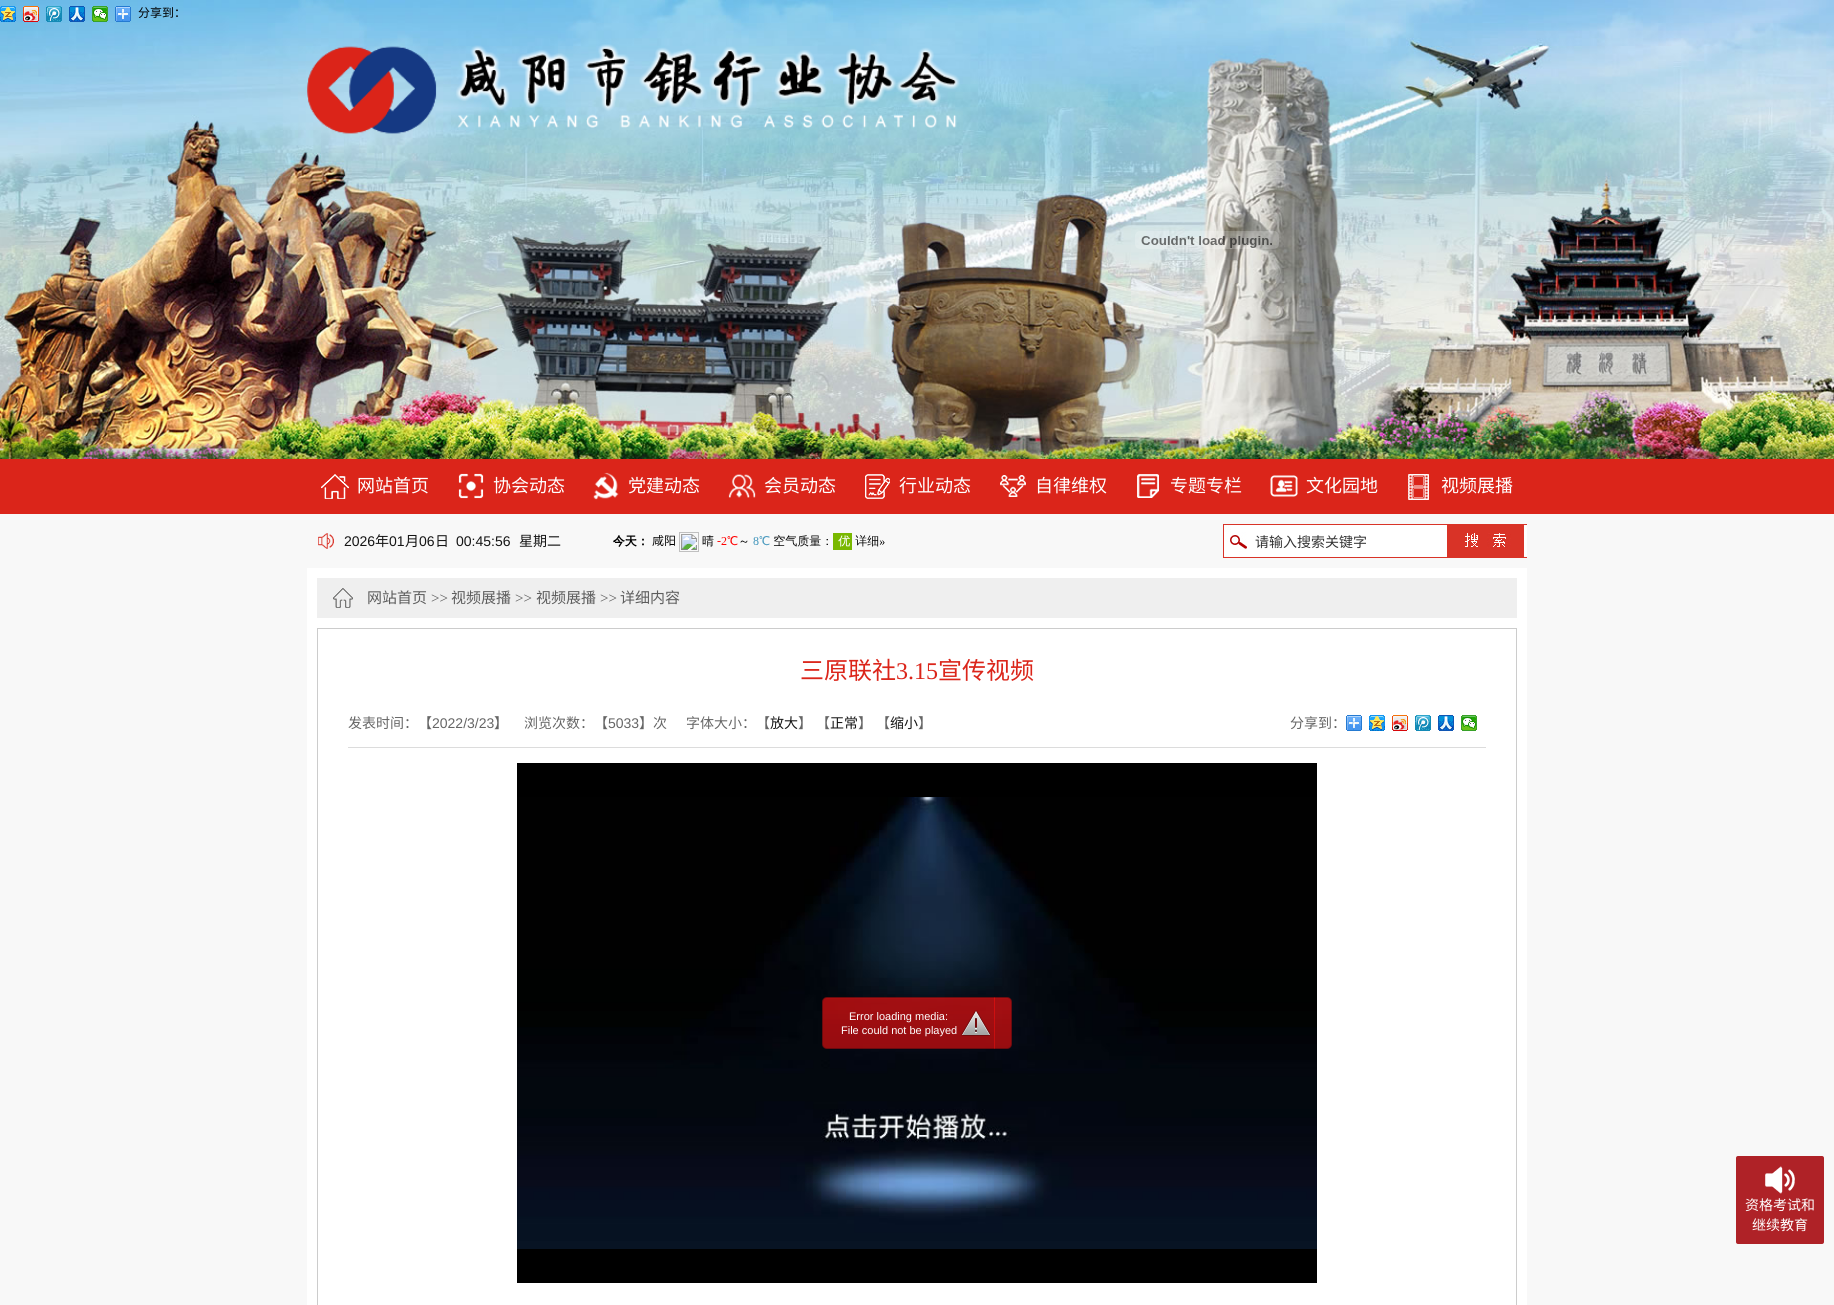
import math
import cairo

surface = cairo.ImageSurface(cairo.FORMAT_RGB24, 1834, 1305)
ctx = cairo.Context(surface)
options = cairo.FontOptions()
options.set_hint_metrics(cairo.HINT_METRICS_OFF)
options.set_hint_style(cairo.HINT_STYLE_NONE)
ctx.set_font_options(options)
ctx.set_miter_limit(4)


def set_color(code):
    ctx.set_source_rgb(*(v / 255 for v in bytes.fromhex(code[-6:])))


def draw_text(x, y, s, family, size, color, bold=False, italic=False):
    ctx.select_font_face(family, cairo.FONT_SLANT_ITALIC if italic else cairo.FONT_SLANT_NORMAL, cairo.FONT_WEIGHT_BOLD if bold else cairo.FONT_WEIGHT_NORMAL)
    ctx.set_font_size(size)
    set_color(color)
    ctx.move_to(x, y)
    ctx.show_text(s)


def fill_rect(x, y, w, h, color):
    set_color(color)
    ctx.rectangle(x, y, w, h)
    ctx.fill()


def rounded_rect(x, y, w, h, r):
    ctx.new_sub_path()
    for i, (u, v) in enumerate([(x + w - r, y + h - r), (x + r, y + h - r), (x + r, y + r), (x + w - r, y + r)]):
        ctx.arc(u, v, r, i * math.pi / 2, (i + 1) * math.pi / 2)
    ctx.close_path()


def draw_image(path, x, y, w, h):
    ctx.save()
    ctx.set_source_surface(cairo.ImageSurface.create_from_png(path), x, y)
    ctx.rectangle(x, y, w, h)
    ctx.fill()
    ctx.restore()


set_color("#f8f8f8")
ctx.paint()
draw_image("assets/img1.png", 0, 0, 1834, 459)
draw_image("assets/img2.png", 307, 44, 653, 90)
draw_image("assets/img3.png", 1135, 231, 144, 18)
draw_image("assets/img4.png", 0, 6, 16, 16)
draw_image("assets/img5.png", 23, 6, 16, 16)
draw_image("assets/img6.png", 46, 6, 16, 16)
draw_image("assets/img7.png", 69, 6, 16, 16)
draw_image("assets/img8.png", 92, 6, 16, 16)
draw_image("assets/img9.png", 115, 6, 16, 16)
draw_text(138, 17, "分享到：", "Noto Sans CJK SC", 12, "#000000")
fill_rect(0, 459, 1834, 55, "#db251a")
draw_image("assets/img10.png", 321, 474, 28, 25)
draw_text(357, 492, "网站首页", "Noto Sans CJK SC", 18, "#ffffff")
draw_image("assets/img11.png", 458, 473, 26, 26)
draw_text(493, 492, "协会动态", "Noto Sans CJK SC", 18, "#ffffff")
draw_image("assets/img12.png", 593, 472, 26, 28)
draw_text(628, 492, "党建动态", "Noto Sans CJK SC", 18, "#ffffff")
draw_image("assets/img13.png", 728, 474, 28, 24)
draw_text(764, 492, "会员动态", "Noto Sans CJK SC", 18, "#ffffff")
draw_image("assets/img14.png", 865, 474, 25, 25)
draw_text(899, 492, "行业动态", "Noto Sans CJK SC", 18, "#ffffff")
draw_image("assets/img15.png", 1000, 475, 26, 22)
draw_text(1035, 492, "自律维权", "Noto Sans CJK SC", 18, "#ffffff")
draw_image("assets/img16.png", 1137, 474, 22, 24)
draw_text(1170, 492, "专题专栏", "Noto Sans CJK SC", 18, "#ffffff")
draw_image("assets/img17.png", 1270, 475, 28, 22)
draw_text(1306, 492, "文化园地", "Noto Sans CJK SC", 18, "#ffffff")
draw_image("assets/img18.png", 1408, 474, 21, 26)
draw_text(1441, 492, "视频展播", "Noto Sans CJK SC", 18, "#ffffff")
draw_image("assets/img19.png", 318, 533, 16, 16)
draw_text(344, 546, "2026", "Liberation Sans", 14, "#151515")
draw_text(375, 546, "年", "Noto Sans CJK SC", 14, "#151515")
draw_text(389, 546, "01", "Liberation Sans", 14, "#151515")
draw_text(405, 546, "月", "Noto Sans CJK SC", 14, "#151515")
draw_text(419, 546, "06", "Liberation Sans", 14, "#151515")
draw_text(435, 546, "日", "Noto Sans CJK SC", 14, "#151515")
draw_text(456, 546, "00:45:56", "Liberation Sans", 14, "#151515")
draw_text(519, 546, "星期二", "Noto Sans CJK SC", 14, "#151515")
draw_image("assets/img20.png", 613, 532, 272, 20)
draw_image("assets/img21.png", 1223, 524, 304, 34)
draw_text(1255, 547, "请输入搜索关键字", "Noto Sans CJK SC", 14, "#333333")
fill_rect(307, 568, 1220, 737, "#ffffff")
fill_rect(317, 578, 1200, 40, "#efefef")
draw_image("assets/img22.png", 333, 588, 20, 20)
draw_text(367, 603, "网站首页", "Noto Sans CJK SC", 15, "#5d5d5d")
draw_text(431, 603, ">>", "Liberation Serif", 15, "#5d5d5d")
draw_text(451, 603, "视频展播", "Noto Sans CJK SC", 15, "#5d5d5d")
draw_text(515, 603, ">>", "Liberation Serif", 15, "#5d5d5d")
draw_text(536, 603, "视频展播", "Noto Sans CJK SC", 15, "#5d5d5d")
draw_text(600, 603, ">>", "Liberation Serif", 15, "#5d5d5d")
draw_text(620, 603, "详细内容", "Noto Sans CJK SC", 15, "#5d5d5d")
fill_rect(317, 628, 1200, 677, "#cccccc")
fill_rect(318, 629, 1198, 676, "#ffffff")
draw_text(800, 679, "三原联社", "Noto Sans CJK SC", 24, "#db251a")
draw_text(896, 679, "3.15", "Liberation Serif", 24, "#db251a")
draw_text(938, 679, "宣传视频", "Noto Sans CJK SC", 24, "#db251a")
draw_text(348, 728, "发表时间：【", "Noto Sans CJK SC", 14, "#666666")
draw_text(432, 728, "2022/3/23", "Liberation Sans", 14, "#666666")
draw_text(494, 728, "】", "Noto Sans CJK SC", 14, "#666666")
draw_text(524, 728, "浏览次数：【", "Noto Sans CJK SC", 14, "#666666")
draw_text(608, 728, "5033", "Liberation Sans", 14, "#666666")
draw_text(639, 728, "】次", "Noto Sans CJK SC", 14, "#666666")
draw_text(686, 728, "字体大小：【", "Noto Sans CJK SC", 14, "#666666")
draw_text(770, 728, "放大", "Noto Sans CJK SC", 14, "#151515")
draw_text(798, 728, "】", "Noto Sans CJK SC", 14, "#666666")
draw_text(816, 728, "【", "Noto Sans CJK SC", 14, "#666666")
draw_text(830, 728, "正常", "Noto Sans CJK SC", 14, "#151515")
draw_text(858, 728, "】", "Noto Sans CJK SC", 14, "#666666")
draw_text(876, 728, "【", "Noto Sans CJK SC", 14, "#666666")
draw_text(890, 728, "缩小", "Noto Sans CJK SC", 14, "#151515")
draw_text(918, 728, "】", "Noto Sans CJK SC", 14, "#666666")
draw_text(1290, 728, "分享到：", "Noto Sans CJK SC", 14, "#666666")
draw_image("assets/img23.png", 1346, 715, 16, 16)
draw_image("assets/img24.png", 1369, 715, 16, 16)
draw_image("assets/img25.png", 1392, 715, 16, 16)
draw_image("assets/img26.png", 1415, 715, 16, 16)
draw_image("assets/img27.png", 1438, 715, 16, 16)
draw_image("assets/img28.png", 1461, 715, 16, 16)
fill_rect(348, 747, 1138, 1, "#dcdcdc")
fill_rect(517, 763, 800, 520, "#000000")
draw_image("assets/img29.png", 517, 797, 800, 452)
draw_image("assets/img30.png", 822, 997, 190, 52)
draw_text(849, 1020, "Error loading media:", "Liberation Sans", 11, "#ffffff")
draw_text(841, 1034, "File could not be played", "Liberation Sans", 11, "#ffffff")
draw_image("assets/img31.png", 961, 1010, 30, 26)
set_color("#af2227")
rounded_rect(1736, 1156, 88, 88, 2)
ctx.fill()
draw_image("assets/img32.png", 1765, 1166, 30, 28)
draw_text(1745, 1210, "资格考试和", "Noto Sans CJK SC", 14, "#ffffff")
draw_text(1752, 1230, "继续教育", "Noto Sans CJK SC", 14, "#ffffff")
surface.write_to_png("output.png")
